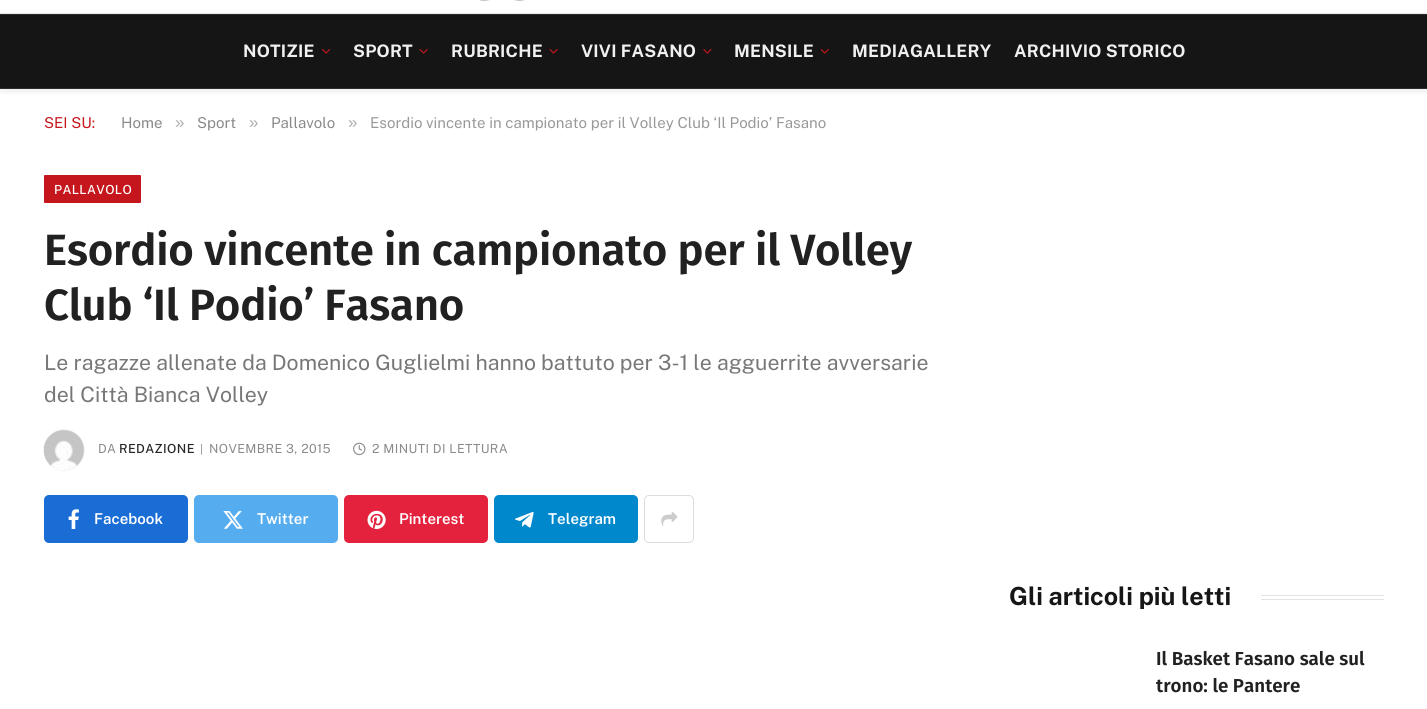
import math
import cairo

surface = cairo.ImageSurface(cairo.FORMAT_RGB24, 1427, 709)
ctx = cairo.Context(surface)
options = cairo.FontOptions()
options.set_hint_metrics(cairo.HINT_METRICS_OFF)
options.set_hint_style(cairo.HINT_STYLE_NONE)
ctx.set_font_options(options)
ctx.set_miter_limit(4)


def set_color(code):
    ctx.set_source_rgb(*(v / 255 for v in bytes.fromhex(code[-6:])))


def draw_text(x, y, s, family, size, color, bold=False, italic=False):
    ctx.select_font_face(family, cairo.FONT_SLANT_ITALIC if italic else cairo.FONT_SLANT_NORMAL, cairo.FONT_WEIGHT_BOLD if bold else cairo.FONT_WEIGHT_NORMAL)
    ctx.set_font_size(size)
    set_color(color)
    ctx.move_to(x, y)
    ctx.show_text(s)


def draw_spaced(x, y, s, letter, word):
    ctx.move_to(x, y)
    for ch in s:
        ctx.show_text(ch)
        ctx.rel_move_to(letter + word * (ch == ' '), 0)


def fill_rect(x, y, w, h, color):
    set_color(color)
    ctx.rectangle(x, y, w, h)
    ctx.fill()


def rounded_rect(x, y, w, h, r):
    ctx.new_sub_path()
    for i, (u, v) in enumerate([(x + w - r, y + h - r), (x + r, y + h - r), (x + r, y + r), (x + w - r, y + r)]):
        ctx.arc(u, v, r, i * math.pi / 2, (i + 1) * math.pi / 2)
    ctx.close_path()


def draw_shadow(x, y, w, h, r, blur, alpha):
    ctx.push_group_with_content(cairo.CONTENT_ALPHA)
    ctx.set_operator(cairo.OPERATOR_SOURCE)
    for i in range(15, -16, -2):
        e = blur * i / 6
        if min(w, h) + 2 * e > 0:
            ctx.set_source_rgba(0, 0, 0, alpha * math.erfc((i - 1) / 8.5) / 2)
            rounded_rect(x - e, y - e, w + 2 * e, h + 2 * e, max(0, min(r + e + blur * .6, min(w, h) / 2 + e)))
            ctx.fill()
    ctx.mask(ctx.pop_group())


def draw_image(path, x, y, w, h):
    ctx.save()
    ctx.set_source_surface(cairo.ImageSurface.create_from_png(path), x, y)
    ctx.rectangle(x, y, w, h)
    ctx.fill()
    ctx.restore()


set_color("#ffffff")
ctx.paint()
ctx.save()
ctx.rectangle(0, 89, 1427, 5)
ctx.clip()
set_color("#000000")
draw_shadow(0, -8, 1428, 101, 0, 2.5, 0.06)
ctx.restore()
fill_rect(0, 13, 1427, 1, "#e5e5e5")
draw_image("assets/img1.png", 479, 0, 46, 1)
fill_rect(0, 15, 1427, 73, "#151515")
fill_rect(0, 14, 1427, 1, "#2c2c2c")
fill_rect(0, 88, 1427, 1, "#2c2c2c")
ctx.select_font_face("Public Sans", cairo.FONT_SLANT_NORMAL, cairo.FONT_WEIGHT_BOLD)
ctx.set_font_size(17.25)
set_color("#f0f0f0")
draw_spaced(243, 57, "NOTIZIE", 0.2, 0)
draw_image("assets/img2.png", 321, 48, 10, 6)
draw_spaced(353, 57, "SPORT", 0.2, 0)
draw_image("assets/img3.png", 419, 48, 9, 6)
draw_spaced(451, 57, "RUBRICHE", 0.2, 0)
draw_image("assets/img3.png", 549, 48, 9, 6)
draw_spaced(581, 57, "VIVI FASANO", 0.2, 0)
draw_image("assets/img4.png", 703, 48, 9, 6)
draw_spaced(734, 57, "MENSILE", 0.2, 0)
draw_image("assets/img5.png", 820, 48, 9, 6)
draw_spaced(852, 57, "MEDIAGALLERY", 0.2, 0)
draw_spaced(1014, 57, "ARCHIVIO STORICO", 0.2, 0)
draw_text(44, 128, "SEI SU:", "Public Sans", 15, "#c5161d")
draw_text(121, 128, "Home", "Public Sans", 15, "#8a8a8a")
draw_text(175, 128, "»", "Liberation Sans", 17, "#adadad")
draw_text(197, 128, "Sport", "Public Sans", 15, "#8a8a8a")
draw_text(249, 128, "»", "Liberation Sans", 17, "#adadad")
draw_text(271, 128, "Pallavolo", "Public Sans", 15, "#8a8a8a")
draw_text(348, 128, "»", "Liberation Sans", 17, "#adadad")
draw_text(370, 128, "Esordio vincente in campionato per il Volley Club ‘Il Podio’ Fasano", "Public Sans", 15, "#999999")
set_color("#c5161d")
rounded_rect(44, 175, 97, 28, 1)
ctx.fill()
ctx.select_font_face("Public Sans Medium")
ctx.set_font_size(12.5)
set_color("#ffffff")
draw_spaced(54, 194, "PALLAVOLO", 0.4, 0)
ctx.select_font_face("Fira Sans SemiBold")
ctx.set_font_size(43.75)
set_color("#212121")
draw_spaced(44, 265, "Esordio vincente in campionato per il Volley", -0.2, 0)
draw_spaced(44, 320, "Club ‘Il Podio’ Fasano", -0.2, 0)
draw_text(44, 370, "Le ragazze allenate da Domenico Guglielmi hanno battuto per 3-1 le agguerrite avversarie", "Public Sans", 21.25, "#777777")
draw_text(44, 402, "del Città Bianca Volley", "Public Sans", 21.25, "#777777")
set_color("#000000")
draw_shadow(44, 430, 40, 40, 20, 0.5, 0.2)
draw_image("assets/img6.png", 44, 430, 40, 40)
ctx.set_font_size(12.5)
set_color("#8a8a8a")
draw_spaced(98, 453, "DA", 0.4, 0)
ctx.select_font_face("Public Sans Medium")
set_color("#282828")
draw_spaced(119, 453, "REDAZIONE", 0.4, 0)
draw_text(200, 453, "|", "Public Sans", 11, "#8a8a8a")
ctx.set_font_size(12.5)
draw_spaced(209, 453, "NOVEMBRE 3, 2015", 0.4, 0)
draw_image("assets/img7.png", 353, 442, 13, 14)
draw_spaced(372, 453, "2 MINUTI DI LETTURA", 0.4, 0)
set_color("#1a6dd4")
rounded_rect(44, 495, 144, 48, 5)
ctx.fill()
draw_image("assets/img8.png", 68, 509, 11, 20)
draw_text(94, 524, "Facebook", "Public Sans SemiBold", 15, "#ffffff")
set_color("#55acef")
rounded_rect(194, 495, 144, 48, 5)
ctx.fill()
draw_image("assets/img9.png", 223, 511, 20, 18)
draw_text(257, 524, "Twitter", "Public Sans SemiBold", 15, "#ffffff")
set_color("#e4223e")
rounded_rect(344, 495, 144, 48, 5)
ctx.fill()
draw_image("assets/img10.png", 367, 510, 19, 19)
draw_text(399, 524, "Pinterest", "Public Sans SemiBold", 15, "#ffffff")
set_color("#0088cc")
rounded_rect(494, 495, 144, 48, 5)
ctx.fill()
draw_image("assets/img11.png", 515, 512, 19, 16)
draw_text(548, 524, "Telegram", "Public Sans SemiBold", 15, "#ffffff")
rounded_rect(644.5, 495.5, 49, 47, 4.5)
set_color("#dddddd")
ctx.set_line_width(1)
ctx.stroke()
draw_image("assets/img12.png", 661, 511, 17, 15)
draw_text(1009, 605, "Gli articoli più letti", "Public Sans", 25, "#161616", bold=True)
fill_rect(1261, 595, 123, 1, "#e2e2e2")
fill_rect(1261, 599, 123, 1, "#e2e2e2")
draw_text(1156, 665, "Il Basket Fasano sale sul", "Fira Sans SemiBold", 18.75, "#212121")
draw_text(1156, 692, "trono: le Pantere", "Fira Sans SemiBold", 18.75, "#212121")
surface.write_to_png("output.png")
